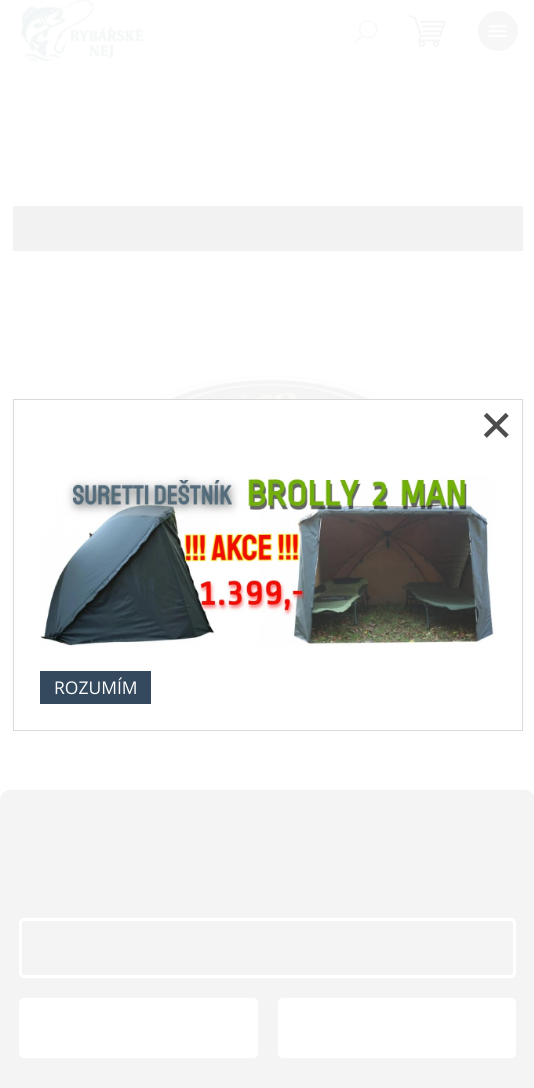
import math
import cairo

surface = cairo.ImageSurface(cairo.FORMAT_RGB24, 534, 1088)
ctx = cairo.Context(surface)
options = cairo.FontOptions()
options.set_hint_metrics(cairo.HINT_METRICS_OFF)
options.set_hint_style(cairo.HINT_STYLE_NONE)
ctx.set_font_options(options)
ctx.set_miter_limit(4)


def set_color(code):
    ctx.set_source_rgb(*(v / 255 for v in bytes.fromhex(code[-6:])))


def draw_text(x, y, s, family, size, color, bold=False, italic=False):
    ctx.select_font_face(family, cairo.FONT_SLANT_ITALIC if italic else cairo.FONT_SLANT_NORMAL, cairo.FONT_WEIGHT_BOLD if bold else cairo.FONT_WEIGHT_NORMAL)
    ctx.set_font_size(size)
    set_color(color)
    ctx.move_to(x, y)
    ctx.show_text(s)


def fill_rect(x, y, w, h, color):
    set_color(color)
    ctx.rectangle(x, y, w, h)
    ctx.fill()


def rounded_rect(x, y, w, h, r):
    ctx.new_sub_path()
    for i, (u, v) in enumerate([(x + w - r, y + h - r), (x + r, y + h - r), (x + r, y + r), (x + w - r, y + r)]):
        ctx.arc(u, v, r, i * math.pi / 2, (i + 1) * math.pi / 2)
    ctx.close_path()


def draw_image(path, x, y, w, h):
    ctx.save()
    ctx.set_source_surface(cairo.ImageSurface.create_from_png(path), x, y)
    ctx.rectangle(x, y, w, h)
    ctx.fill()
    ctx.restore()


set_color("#ffffff")
ctx.paint()
draw_image("assets/img1.png", 20, 0, 125, 63)
draw_image("assets/img2.png", 408, 14, 39, 33)
draw_image("assets/img3.png", 355, 20, 23, 23)
set_color("#f7f7f7")
ctx.arc(498, 31, 20, 0, 2 * math.pi)
ctx.fill()
draw_image("assets/img4.png", 488, 25, 19, 12)
fill_rect(13, 206, 510, 45, "#f2f2f2")
draw_image("assets/img5.png", 107, 372, 326, 27)
ctx.rectangle(13.5, 399.5, 509, 331)
set_color("#dadada")
ctx.set_line_width(1)
ctx.stroke()
draw_image("assets/img6.png", 483, 412, 26, 26)
draw_image("assets/img7.png", 40, 475, 455, 172)
fill_rect(40, 671, 111, 33, "#34495e")
draw_text(54, 694, "ROZUMÍM", "Open Sans", 17.5, "#ffffff")
set_color("#f4f4f5")
ctx.new_path()
ctx.move_to(10, 790)
ctx.line_to(525, 790)
ctx.curve_to(530.5, 790, 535, 794.5, 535, 800)
ctx.line_to(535, 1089)
ctx.line_to(0, 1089)
ctx.line_to(0, 800)
ctx.curve_to(0, 794.5, 4.5, 790, 10, 790)
ctx.close_path()
ctx.fill()
rounded_rect(20.5, 919.5, 494, 57, 3.5)
set_color("#ffffff")
ctx.set_line_width(3)
ctx.stroke()
rounded_rect(19, 998, 239, 60, 5)
ctx.fill()
rounded_rect(278, 998, 238, 60, 5)
ctx.fill()
surface.write_to_png("output.png")
